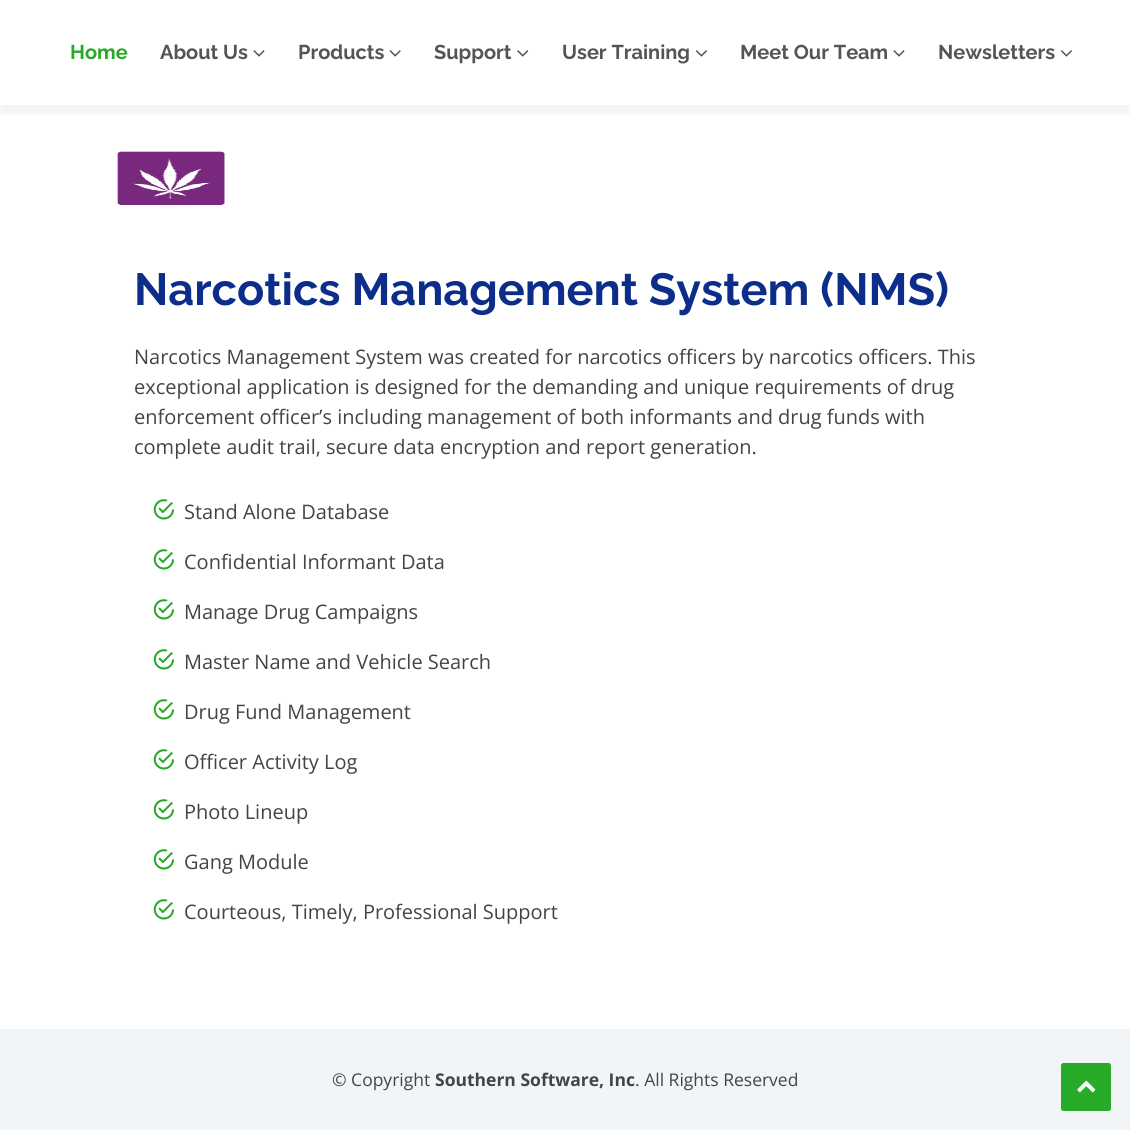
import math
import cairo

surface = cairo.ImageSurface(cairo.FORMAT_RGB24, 1130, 1130)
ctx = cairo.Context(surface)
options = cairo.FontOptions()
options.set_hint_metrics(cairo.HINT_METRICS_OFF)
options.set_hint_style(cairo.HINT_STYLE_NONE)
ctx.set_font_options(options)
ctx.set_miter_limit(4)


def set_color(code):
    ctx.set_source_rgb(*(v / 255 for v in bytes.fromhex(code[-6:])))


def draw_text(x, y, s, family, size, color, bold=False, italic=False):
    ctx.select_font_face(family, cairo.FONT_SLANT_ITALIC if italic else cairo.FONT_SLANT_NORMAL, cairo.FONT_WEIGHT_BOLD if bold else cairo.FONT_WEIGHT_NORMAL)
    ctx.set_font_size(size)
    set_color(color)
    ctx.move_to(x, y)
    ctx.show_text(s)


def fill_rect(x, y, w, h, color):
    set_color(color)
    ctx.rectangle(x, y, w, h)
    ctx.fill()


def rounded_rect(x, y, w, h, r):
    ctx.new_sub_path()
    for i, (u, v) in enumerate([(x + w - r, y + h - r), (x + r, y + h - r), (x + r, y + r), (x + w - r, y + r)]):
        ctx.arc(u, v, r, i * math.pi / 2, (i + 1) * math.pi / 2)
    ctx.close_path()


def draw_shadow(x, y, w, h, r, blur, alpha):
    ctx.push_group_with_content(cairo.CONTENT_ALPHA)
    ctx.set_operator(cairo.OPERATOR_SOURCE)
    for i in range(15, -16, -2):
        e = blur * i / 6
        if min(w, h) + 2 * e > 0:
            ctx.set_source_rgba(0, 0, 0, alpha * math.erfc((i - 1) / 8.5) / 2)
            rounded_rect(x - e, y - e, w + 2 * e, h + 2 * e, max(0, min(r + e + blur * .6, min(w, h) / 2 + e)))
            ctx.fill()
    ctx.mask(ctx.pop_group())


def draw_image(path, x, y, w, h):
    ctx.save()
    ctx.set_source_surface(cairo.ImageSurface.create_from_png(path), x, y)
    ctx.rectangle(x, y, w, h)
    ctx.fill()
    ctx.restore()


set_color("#ffffff")
ctx.paint()
ctx.save()
ctx.rectangle(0, 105, 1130, 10)
ctx.clip()
set_color("#000000")
draw_shadow(0, 8, 1130, 105, 0, 5.5, 0.06)
ctx.restore()
draw_text(70, 59, "Home", "Raleway", 20, "#26aa26", bold=True)
draw_text(160, 59, "About Us", "Raleway", 20, "#555555", bold=True)
draw_image("assets/img1.png", 253, 50, 12, 7)
draw_text(298, 59, "Products", "Raleway", 20, "#555555", bold=True)
draw_image("assets/img2.png", 389, 50, 12, 7)
draw_text(434, 59, "Support", "Raleway", 20, "#555555", bold=True)
draw_image("assets/img3.png", 517, 50, 12, 7)
draw_text(562, 59, "User Training", "Raleway", 20, "#555555", bold=True)
draw_image("assets/img4.png", 695, 50, 12, 7)
draw_text(740, 59, "Meet Our Team", "Raleway", 20, "#555555", bold=True)
draw_image("assets/img1.png", 893, 50, 12, 7)
draw_text(938, 59, "Newsletters", "Raleway", 20, "#555555", bold=True)
draw_image("assets/img4.png", 1060, 50, 12, 7)
draw_image("assets/img5.png", 117, 151, 108, 54)
draw_text(134, 305, "Narcotics Management System (NMS)", "Raleway", 45, "#0c2e8a", bold=True)
draw_text(134, 364, "Narcotics Management System was created for narcotics officers by narcotics officers. This", "Open Sans", 20, "#444444")
draw_text(134, 394, "exceptional application is designed for the demanding and unique requirements of drug", "Open Sans", 20, "#444444")
draw_text(134, 424, "enforcement officer’s including management of both informants and drug funds with", "Open Sans", 20, "#444444")
draw_text(134, 454, "complete audit trail, secure data encryption and report generation.", "Open Sans", 20, "#444444")
draw_image("assets/img6.png", 153, 499, 21, 21)
draw_text(184, 519, "Stand Alone Database", "Open Sans", 20, "#444444")
draw_image("assets/img6.png", 153, 549, 21, 21)
draw_text(184, 569, "Confidential Informant Data", "Open Sans", 20, "#444444")
draw_image("assets/img6.png", 153, 599, 21, 21)
draw_text(184, 619, "Manage Drug Campaigns", "Open Sans", 20, "#444444")
draw_image("assets/img6.png", 153, 649, 21, 21)
draw_text(184, 669, "Master Name and Vehicle Search", "Open Sans", 20, "#444444")
draw_image("assets/img6.png", 153, 699, 21, 21)
draw_text(184, 719, "Drug Fund Management", "Open Sans", 20, "#444444")
draw_image("assets/img6.png", 153, 749, 21, 21)
draw_text(184, 769, "Officer Activity Log", "Open Sans", 20, "#444444")
draw_image("assets/img6.png", 153, 799, 21, 21)
draw_text(184, 819, "Photo Lineup", "Open Sans", 20, "#444444")
draw_image("assets/img6.png", 153, 849, 21, 21)
draw_text(184, 869, "Gang Module", "Open Sans", 20, "#444444")
draw_image("assets/img6.png", 153, 899, 21, 21)
draw_text(184, 919, "Courteous, Timely, Professional Support", "Open Sans", 20, "#444444")
fill_rect(0, 1029, 1130, 101, "#f2f5f8")
draw_text(332, 1086, "© Copyright", "Open Sans", 17.5, "#444444")
draw_text(435, 1086, "Southern Software, Inc", "Open Sans", 17.5, "#444444", bold=True)
draw_text(635, 1086, ". All Rights Reserved", "Open Sans", 17.5, "#444444")
set_color("#28ab28")
rounded_rect(1061, 1063, 50, 48, 2.5)
ctx.fill()
draw_image("assets/img7.png", 1077, 1080, 19, 13)
surface.write_to_png("output.png")
